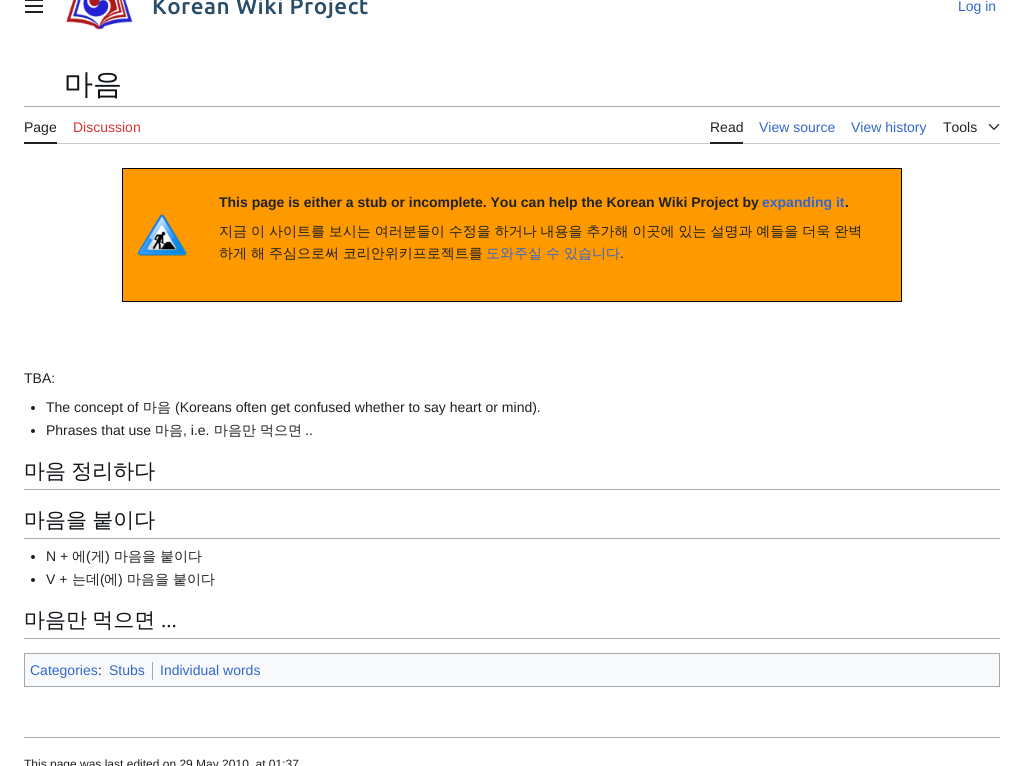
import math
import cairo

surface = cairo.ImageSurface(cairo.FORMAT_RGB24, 1024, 766)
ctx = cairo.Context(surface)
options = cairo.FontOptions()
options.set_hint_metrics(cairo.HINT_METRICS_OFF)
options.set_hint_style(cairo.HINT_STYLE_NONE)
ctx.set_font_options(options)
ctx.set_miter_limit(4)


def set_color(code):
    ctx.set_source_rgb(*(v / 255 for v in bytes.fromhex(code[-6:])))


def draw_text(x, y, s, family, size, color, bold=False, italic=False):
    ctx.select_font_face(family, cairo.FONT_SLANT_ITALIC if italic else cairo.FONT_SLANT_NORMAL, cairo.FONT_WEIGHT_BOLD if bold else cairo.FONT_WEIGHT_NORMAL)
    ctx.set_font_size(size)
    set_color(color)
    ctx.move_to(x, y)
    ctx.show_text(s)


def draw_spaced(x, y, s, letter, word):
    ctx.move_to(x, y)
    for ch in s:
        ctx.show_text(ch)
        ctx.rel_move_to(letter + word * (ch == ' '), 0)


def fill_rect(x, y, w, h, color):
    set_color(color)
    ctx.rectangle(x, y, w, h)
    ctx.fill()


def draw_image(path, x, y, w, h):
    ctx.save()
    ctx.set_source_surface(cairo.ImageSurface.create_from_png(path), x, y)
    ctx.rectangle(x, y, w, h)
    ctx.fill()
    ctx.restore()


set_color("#ffffff")
ctx.paint()
draw_image("assets/img1.png", 25, 0, 18, 13)
draw_image("assets/img2.png", 66, 0, 67, 30)
ctx.select_font_face("Ubuntu Medium")
ctx.set_font_size(22.5)
set_color("#2a4d69")
draw_spaced(152, 14, "Korean Wiki Project", 0.5, 0)
draw_text(958, 11, "Log in", "Liberation Sans", 14, "#3366cc")
draw_text(64, 94, "마음", "WenQuanYi Zen Hei Medium", 29, "#101418")
fill_rect(24, 106, 976, 1, "#a2a9b1")
fill_rect(57, 143, 943, 1, "#c8ccd1")
fill_rect(24, 142, 33, 2, "#202122")
draw_text(24, 132, "Page", "Liberation Sans", 14, "#202122")
draw_text(73, 132, "Discussion", "Liberation Sans", 14, "#d73333")
fill_rect(710, 142, 33, 2, "#202122")
draw_text(710, 132, "Read", "Liberation Sans", 14, "#202122")
draw_text(759, 132, "View source", "Liberation Sans", 14, "#3366cc")
draw_text(851, 132, "View history", "Liberation Sans", 14, "#3366cc")
draw_text(943, 132, "Tools", "Liberation Sans", 14, "#202122")
draw_image("assets/img3.png", 988, 124, 12, 6)
set_color("#fe9900")
ctx.rectangle(122.5, 168.5, 779, 133)
ctx.fill_preserve()
set_color("#000000")
ctx.set_line_width(1)
ctx.stroke()
draw_image("assets/img4.png", 137, 214, 50, 42)
draw_text(219, 207, "This page is either a stub or incomplete. You can help the Korean Wiki Project by", "Liberation Sans", 14, "#202122", bold=True)
draw_text(762, 207, "expanding it", "Liberation Sans", 14, "#3366cc", bold=True)
draw_text(845, 207, ".", "Liberation Sans", 14, "#202122", bold=True)
ctx.select_font_face("WenQuanYi Zen Hei Medium")
draw_spaced(219, 236, "지금 이 사이트를 보시는 여러분들이 수정을 하거나 내용을 추가해 이곳에 있는 설명과 예들을 더욱 완벽", 0, -0.25)
draw_spaced(219, 258, "하게 해 주심으로써 코리안위키프로젝트를", 0, -0.25)
set_color("#3366cc")
draw_spaced(486, 258, "도와주실 수 있습니다", 0, -0.25)
draw_text(620, 258, ".", "Liberation Sans", 14, "#202122")
draw_text(24, 383, "TBA:", "Liberation Sans", 14, "#202122")
ctx.new_path()
ctx.arc(33, 408, 2, 0, 2 * math.pi)
ctx.fill()
draw_text(46, 412, "The concept of", "Liberation Sans", 14, "#202122")
draw_text(143, 412, "마음", "WenQuanYi Zen Hei Medium", 14, "#202122")
draw_text(175, 412, "(Koreans often get confused whether to say heart or mind).", "Liberation Sans", 14, "#202122")
ctx.new_path()
ctx.arc(33, 431, 2, 0, 2 * math.pi)
ctx.fill()
draw_text(46, 435, "Phrases that use", "Liberation Sans", 14, "#202122")
draw_text(155, 435, "마음", "WenQuanYi Zen Hei Medium", 14, "#202122")
draw_text(183, 435, ", i.e.", "Liberation Sans", 14, "#202122")
draw_text(214, 435, "마음만", "WenQuanYi Zen Hei Medium", 14, "#202122")
draw_text(260, 435, "먹으면", "WenQuanYi Zen Hei Medium", 14, "#202122")
draw_text(305, 435, "..", "Liberation Sans", 14, "#202122")
fill_rect(24, 489, 976, 1, "#a2a9b1")
ctx.select_font_face("WenQuanYi Zen Hei Medium")
ctx.set_font_size(21)
set_color("#101418")
draw_spaced(24, 478, "마음 정리하다", 0, -1)
fill_rect(24, 538, 976, 1, "#a2a9b1")
set_color("#101418")
draw_spaced(24, 527, "마음을 붙이다", 0, -1)
set_color("#202122")
ctx.new_path()
ctx.arc(33, 557, 2, 0, 2 * math.pi)
ctx.fill()
draw_text(46, 561, "N +", "Liberation Sans", 14, "#202122")
draw_text(72, 561, "에", "WenQuanYi Zen Hei Medium", 14, "#202122")
draw_text(86, 561, "(", "Liberation Sans", 14, "#202122")
draw_text(91, 561, "게", "WenQuanYi Zen Hei Medium", 14, "#202122")
draw_text(105, 561, ")", "Liberation Sans", 14, "#202122")
draw_text(114, 561, "마음을", "WenQuanYi Zen Hei Medium", 14, "#202122")
draw_text(160, 561, "붙이다", "WenQuanYi Zen Hei Medium", 14, "#202122")
ctx.new_path()
ctx.arc(33, 580, 2, 0, 2 * math.pi)
ctx.fill()
draw_text(46, 584, "V +", "Liberation Sans", 14, "#202122")
draw_text(72, 584, "는데", "WenQuanYi Zen Hei Medium", 14, "#202122")
draw_text(100, 584, "(", "Liberation Sans", 14, "#202122")
draw_text(104, 584, "에", "WenQuanYi Zen Hei Medium", 14, "#202122")
draw_text(118, 584, ")", "Liberation Sans", 14, "#202122")
draw_text(127, 584, "마음을", "WenQuanYi Zen Hei Medium", 14, "#202122")
draw_text(173, 584, "붙이다", "WenQuanYi Zen Hei Medium", 14, "#202122")
fill_rect(24, 638, 976, 1, "#a2a9b1")
ctx.set_font_size(21)
set_color("#101418")
draw_spaced(24, 627, "마음만 먹으면", 0, -1)
draw_text(161, 627, "...", "Liberation Serif", 21, "#101418")
set_color("#f8f9fa")
ctx.rectangle(24.5, 653.5, 975, 33)
ctx.fill_preserve()
set_color("#a2a9b1")
ctx.stroke()
draw_text(30, 675, "Categories", "Liberation Sans", 14, "#3366cc")
draw_text(98, 675, ":", "Liberation Sans", 14, "#202122")
draw_text(109, 675, "Stubs", "Liberation Sans", 14, "#3366cc")
fill_rect(152, 662, 1, 18, "#a2a9b1")
draw_text(160, 675, "Individual words", "Liberation Sans", 14, "#3366cc")
fill_rect(24, 737, 976, 1, "#a2a9b1")
draw_text(24, 768, "This page was last edited on 29 May 2010, at 01:37", "Liberation Sans", 12, "#202122")
surface.write_to_png("output.png")
